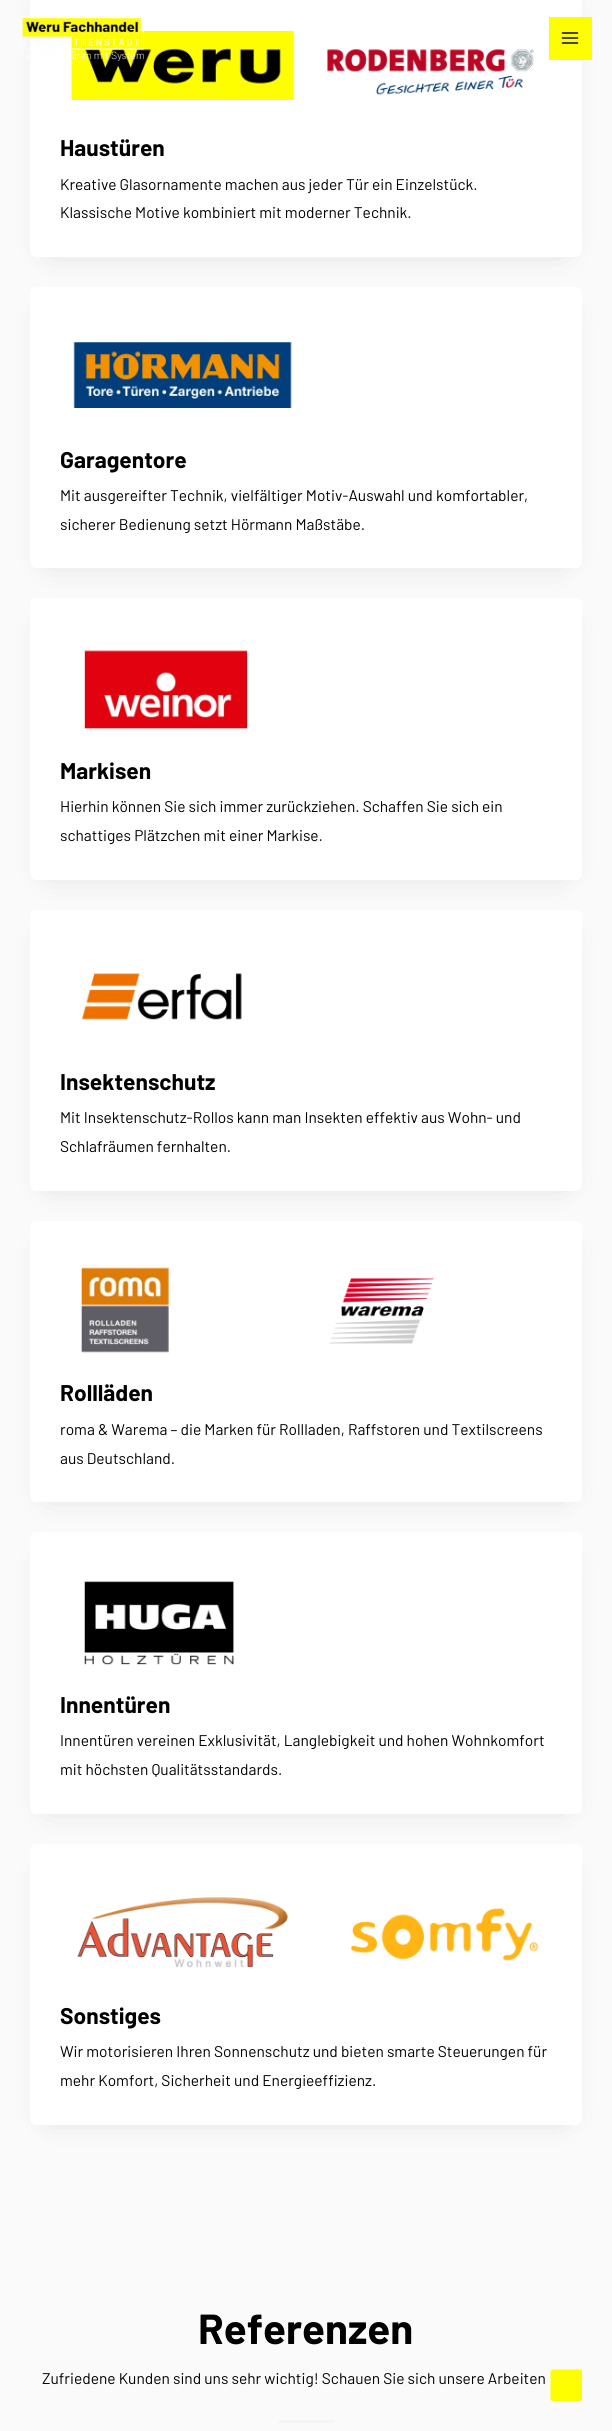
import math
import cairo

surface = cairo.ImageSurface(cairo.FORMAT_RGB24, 612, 2431)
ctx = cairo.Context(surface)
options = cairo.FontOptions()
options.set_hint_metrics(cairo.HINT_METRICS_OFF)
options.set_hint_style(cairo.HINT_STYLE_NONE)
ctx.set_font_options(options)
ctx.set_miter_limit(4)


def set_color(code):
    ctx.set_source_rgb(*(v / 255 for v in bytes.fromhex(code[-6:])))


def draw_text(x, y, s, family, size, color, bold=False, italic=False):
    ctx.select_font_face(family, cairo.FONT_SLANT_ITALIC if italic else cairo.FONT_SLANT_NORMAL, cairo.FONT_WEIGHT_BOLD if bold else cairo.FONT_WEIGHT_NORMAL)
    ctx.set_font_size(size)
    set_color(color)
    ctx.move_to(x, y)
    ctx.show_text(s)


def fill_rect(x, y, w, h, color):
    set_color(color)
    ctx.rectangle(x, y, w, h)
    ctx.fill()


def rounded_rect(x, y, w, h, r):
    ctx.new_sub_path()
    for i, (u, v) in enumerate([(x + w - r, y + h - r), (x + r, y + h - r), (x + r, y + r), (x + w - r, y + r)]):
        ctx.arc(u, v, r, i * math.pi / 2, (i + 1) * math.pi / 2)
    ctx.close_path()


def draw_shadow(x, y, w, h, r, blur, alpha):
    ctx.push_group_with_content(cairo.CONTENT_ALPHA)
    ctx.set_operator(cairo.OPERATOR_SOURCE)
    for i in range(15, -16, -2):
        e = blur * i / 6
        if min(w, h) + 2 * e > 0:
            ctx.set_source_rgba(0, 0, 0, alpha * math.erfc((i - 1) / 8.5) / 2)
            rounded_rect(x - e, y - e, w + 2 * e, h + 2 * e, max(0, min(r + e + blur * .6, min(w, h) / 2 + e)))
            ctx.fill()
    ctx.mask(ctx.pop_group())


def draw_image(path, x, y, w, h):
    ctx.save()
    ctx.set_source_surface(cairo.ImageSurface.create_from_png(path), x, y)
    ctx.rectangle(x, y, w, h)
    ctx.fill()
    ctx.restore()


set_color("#fafafa")
ctx.paint()
set_color("#000000")
draw_shadow(50, 6, 512, 241, 0, 17.5, 0.16)
set_color("#ffffff")
rounded_rect(30, -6, 552, 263, 6)
ctx.fill()
draw_image("assets/img3.png", 71, 31, 224, 69)
draw_image("assets/img1.png", 20, 16, 124, 45)
fill_rect(549, 17, 43, 43, "#fffe00")
draw_image("assets/img2.png", 561, 32, 18, 12)
draw_image("assets/img4.png", 327, 49, 207, 46)
draw_text(60, 156, "Haustüren", "Barlow", 22.75, "#000000", bold=True)
draw_text(60, 190, "Kreative Glasornamente machen aus jeder Tür ein Einzelstück.", "Barlow", 15.5, "#000000")
draw_text(60, 218, "Klassische Motive kombiniert mit moderner Technik.", "Barlow", 15.5, "#000000")
set_color("#000000")
draw_shadow(50, 317, 512, 241, 0, 17.5, 0.16)
set_color("#ffffff")
rounded_rect(30, 287, 552, 281, 6)
ctx.fill()
draw_image("assets/img5.png", 73, 342, 219, 66)
draw_text(60, 468, "Garagentore", "Barlow", 22.75, "#000000", bold=True)
draw_text(60, 501, "Mit ausgereifter Technik, vielfältiger Motiv-Auswahl und komfortabler,", "Barlow", 15.5, "#000000")
draw_text(60, 530, "sicherer Bedienung setzt Hörmann Maßstäbe.", "Barlow", 15.5, "#000000")
set_color("#000000")
draw_shadow(50, 628, 512, 242, 0, 17.5, 0.16)
set_color("#ffffff")
rounded_rect(30, 598, 552, 282, 6)
ctx.fill()
draw_image("assets/img6.png", 84, 650, 164, 79)
draw_text(60, 779, "Markisen", "Barlow", 22.75, "#000000", bold=True)
draw_text(60, 812, "Hierhin können Sie sich immer zurückziehen. Schaffen Sie sich ein", "Barlow", 15.5, "#000000")
draw_text(60, 841, "schattiges Plätzchen mit einer Markise.", "Barlow", 15.5, "#000000")
set_color("#000000")
draw_shadow(50, 940, 512, 241, 0, 17.5, 0.16)
set_color("#ffffff")
rounded_rect(30, 910, 552, 281, 6)
ctx.fill()
draw_image("assets/img7.png", 82, 973, 160, 47)
draw_text(60, 1090, "Insektenschutz", "Barlow", 22.75, "#000000", bold=True)
draw_text(60, 1123, "Mit Insektenschutz-Rollos kann man Insekten effektiv aus Wohn- und", "Barlow", 15.5, "#000000")
draw_text(60, 1152, "Schlafräumen fernhalten.", "Barlow", 15.5, "#000000")
set_color("#000000")
draw_shadow(50, 1251, 512, 241, 0, 17.5, 0.16)
set_color("#ffffff")
rounded_rect(30, 1221, 552, 281, 6)
ctx.fill()
draw_image("assets/img8.png", 81, 1267, 88, 86)
draw_image("assets/img9.png", 329, 1277, 105, 67)
draw_text(60, 1401, "Rollläden", "Barlow", 22.75, "#000000", bold=True)
draw_text(60, 1435, "roma & Warema – die Marken für Rollladen, Raffstoren und Textilscreens", "Barlow", 15.5, "#000000")
draw_text(60, 1464, "aus Deutschland.", "Barlow", 15.5, "#000000")
set_color("#000000")
draw_shadow(50, 1562, 512, 242, 0, 17.5, 0.16)
set_color("#ffffff")
rounded_rect(30, 1532, 552, 282, 6)
ctx.fill()
draw_image("assets/img10.png", 84, 1581, 151, 84)
draw_text(60, 1713, "Innentüren", "Barlow", 22.75, "#000000", bold=True)
draw_text(60, 1746, "Innentüren vereinen Exklusivität, Langlebigkeit und hohen Wohnkomfort", "Barlow", 15.5, "#000000")
draw_text(60, 1775, "mit höchsten Qualitätsstandards.", "Barlow", 15.5, "#000000")
set_color("#000000")
draw_shadow(50, 1874, 512, 241, 0, 17.5, 0.16)
set_color("#ffffff")
rounded_rect(30, 1844, 552, 281, 6)
ctx.fill()
draw_image("assets/img11.png", 77, 1897, 211, 71)
draw_image("assets/img12.png", 350, 1908, 189, 53)
draw_text(60, 2024, "Sonstiges", "Barlow", 22.75, "#000000", bold=True)
draw_text(60, 2057, "Wir motorisieren Ihren Sonnenschutz und bieten smarte Steuerungen für", "Barlow", 15.5, "#000000")
draw_text(60, 2086, "mehr Komfort, Sicherheit und Energieeffizienz.", "Barlow", 15.5, "#000000")
draw_text(198, 2344, "Referenzen", "Barlow", 42, "#000000", bold=True)
draw_text(42, 2384, "Zufriedene Kunden sind uns sehr wichtig! Schauen Sie sich unsere Arbeiten", "Barlow", 15.5, "#000000")
fill_rect(278, 2420, 56, 3, "#f5f5f5")
set_color("#fffe00")
ctx.new_path()
ctx.move_to(580, 2401)
ctx.line_to(552.5, 2401)
ctx.curve_to(551.5, 2401, 550.5, 2400, 550.5, 2399)
ctx.line_to(550.5, 2371.5)
ctx.curve_to(550.5, 2370.5, 551.5, 2369.5, 552.5, 2369.5)
ctx.line_to(580, 2369.5)
ctx.curve_to(581, 2369.5, 582, 2370.5, 582, 2371.5)
ctx.line_to(582, 2399)
ctx.curve_to(582, 2400, 581, 2401, 580, 2401)
ctx.close_path()
ctx.fill()
surface.write_to_png("output.png")
